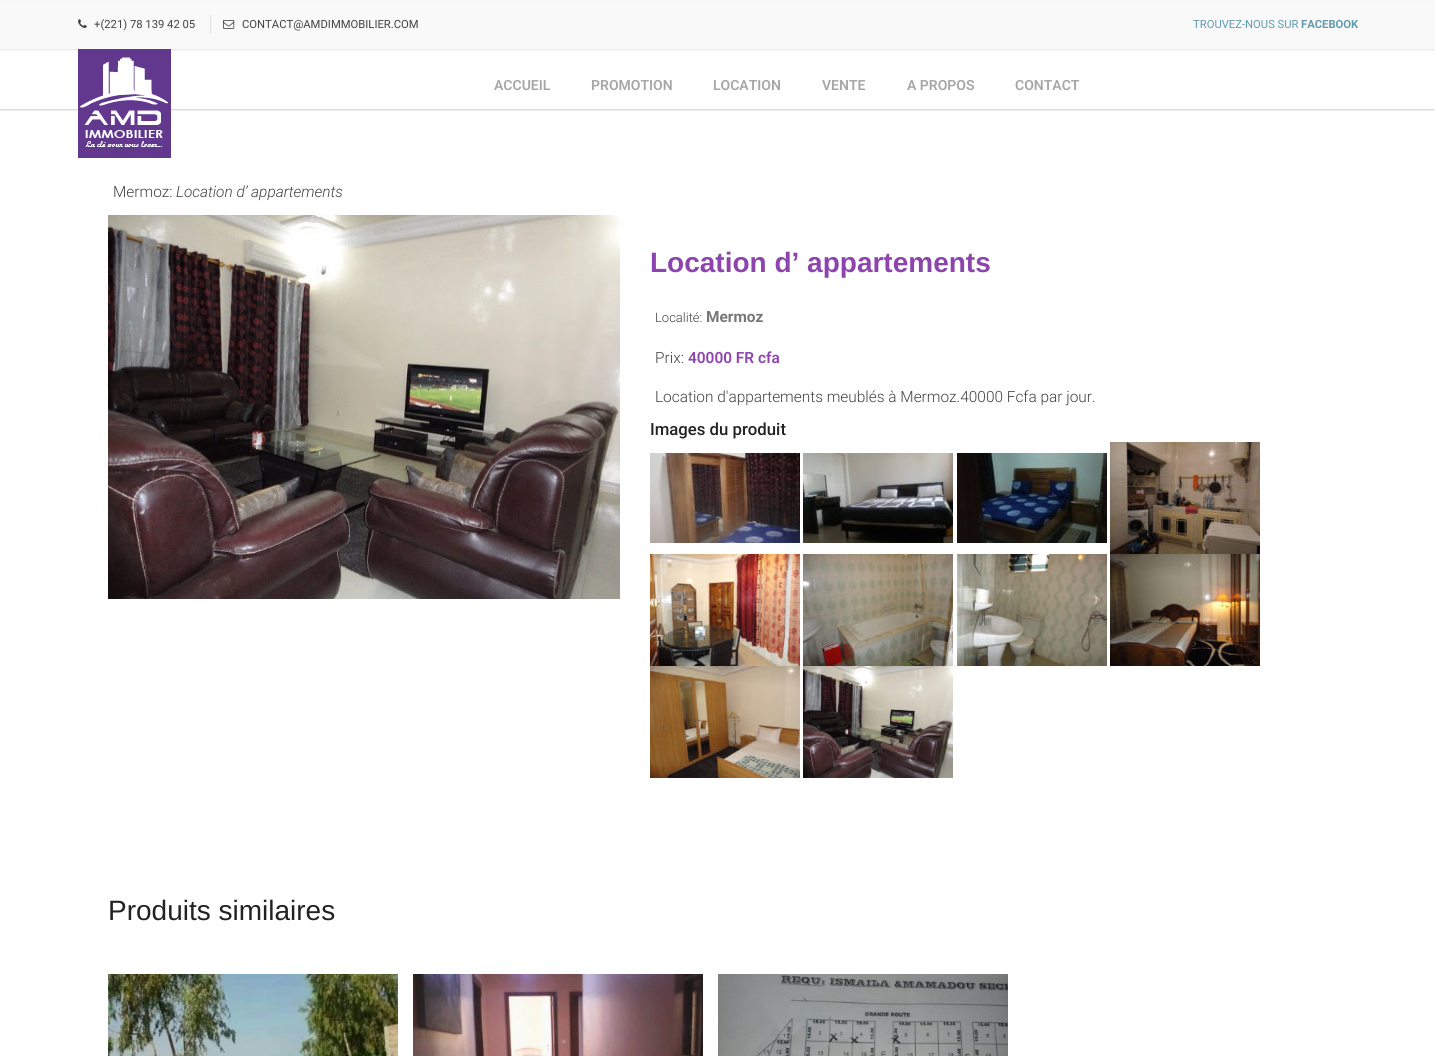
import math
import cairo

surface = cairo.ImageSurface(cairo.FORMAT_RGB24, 1435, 1056)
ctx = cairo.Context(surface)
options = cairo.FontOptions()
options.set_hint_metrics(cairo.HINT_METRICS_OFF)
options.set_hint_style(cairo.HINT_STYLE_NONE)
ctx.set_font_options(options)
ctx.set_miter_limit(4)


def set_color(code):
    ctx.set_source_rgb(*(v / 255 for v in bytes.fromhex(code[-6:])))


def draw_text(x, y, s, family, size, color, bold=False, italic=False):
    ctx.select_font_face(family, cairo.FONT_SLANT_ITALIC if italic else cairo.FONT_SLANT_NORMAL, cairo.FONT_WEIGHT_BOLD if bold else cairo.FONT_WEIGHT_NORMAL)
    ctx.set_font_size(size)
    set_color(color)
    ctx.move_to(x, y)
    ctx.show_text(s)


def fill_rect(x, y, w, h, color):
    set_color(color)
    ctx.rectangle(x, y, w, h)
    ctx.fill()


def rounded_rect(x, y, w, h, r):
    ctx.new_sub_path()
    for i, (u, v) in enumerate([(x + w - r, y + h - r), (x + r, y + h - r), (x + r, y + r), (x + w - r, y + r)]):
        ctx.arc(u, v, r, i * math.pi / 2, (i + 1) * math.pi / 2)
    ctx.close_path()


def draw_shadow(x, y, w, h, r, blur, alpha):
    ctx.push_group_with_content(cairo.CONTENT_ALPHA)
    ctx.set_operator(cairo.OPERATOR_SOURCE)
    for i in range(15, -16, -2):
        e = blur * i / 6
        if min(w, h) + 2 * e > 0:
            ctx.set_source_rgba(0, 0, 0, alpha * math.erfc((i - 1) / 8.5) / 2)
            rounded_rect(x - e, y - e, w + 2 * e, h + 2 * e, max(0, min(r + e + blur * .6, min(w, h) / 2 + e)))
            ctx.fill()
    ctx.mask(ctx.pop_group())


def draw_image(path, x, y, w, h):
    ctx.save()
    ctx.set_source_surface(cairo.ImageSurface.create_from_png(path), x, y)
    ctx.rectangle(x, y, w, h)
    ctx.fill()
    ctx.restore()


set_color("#ffffff")
ctx.paint()
ctx.save()
ctx.rectangle(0, 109, 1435, 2)
ctx.clip()
set_color("#000000")
draw_shadow(0, 1, 1435, 109, 0, 1, 0.2)
ctx.restore()
set_color("#000000")
draw_shadow(0, 1, 1435, 49, 0, 1, 0.1)
fill_rect(0, 1, 1435, 48, "#f9f9f9")
fill_rect(210, 15, 1, 19, "#e0e0e0")
draw_image("assets/img1.png", 78, 19, 9, 9)
draw_text(94, 28, "+(221) 78 139 42 05", "Roboto", 11.25, "#424242")
draw_image("assets/img2.png", 223, 20, 12, 9)
draw_text(242, 28, "CONTACT@AMDIMMOBILIER.COM", "Roboto", 11.25, "#424242")
draw_text(1193, 28, "TROUVEZ-NOUS SUR", "Roboto", 11.25, "#629baf")
draw_text(1301, 28, "FACEBOOK", "Roboto", 11.25, "#629baf", bold=True)
draw_image("assets/img3.png", 78, 49, 93, 109)
draw_text(494, 90, "ACCUEIL", "Roboto SemiBold", 14, "#a7a6a6")
draw_text(591, 90, "PROMOTION", "Roboto SemiBold", 14, "#a7a6a6")
draw_text(713, 90, "LOCATION", "Roboto SemiBold", 14, "#a7a6a6")
draw_text(822, 90, "VENTE", "Roboto SemiBold", 14, "#a7a6a6")
draw_text(907, 90, "A PROPOS", "Roboto SemiBold", 14, "#a7a6a6")
draw_text(1015, 90, "CONTACT", "Roboto SemiBold", 14, "#a7a6a6")
draw_text(113, 197, "Mermoz:", "Roboto Light", 15.4, "#424242")
draw_text(176, 197, "Location d’ appartements", "Roboto Light", 15.4, "#424242", italic=True)
draw_image("assets/img4.png", 108, 215, 512, 384)
draw_text(650, 272, "Location d’ appartements", "Liberation Sans", 28, "#8e44ad", bold=True)
draw_text(655, 322, "Localité:", "Roboto Light", 13, "#424242")
draw_text(706, 322, "Mermoz", "Roboto", 15.4, "#777777", bold=True)
draw_text(655, 363, "Prix:", "Roboto Light", 15.4, "#424242")
draw_text(688, 363, "40000 FR cfa", "Roboto SemiBold", 15.4, "#8e44ad")
draw_text(655, 402, "Location d'appartements meublés à Mermoz.40000 Fcfa par jour.", "Roboto Light", 15.4, "#424242")
draw_text(650, 435, "Images du produit", "Roboto Medium", 16.75, "#212222")
draw_image("assets/img5.png", 650, 453, 150, 90)
draw_image("assets/img6.png", 803, 453, 150, 90)
draw_image("assets/img7.png", 957, 453, 150, 90)
draw_image("assets/img8.png", 1110, 442, 150, 112)
draw_image("assets/img9.png", 650, 554, 150, 112)
draw_image("assets/img10.png", 803, 554, 150, 112)
draw_image("assets/img11.png", 957, 554, 150, 112)
draw_image("assets/img12.png", 1110, 554, 150, 112)
draw_image("assets/img13.png", 650, 666, 150, 112)
draw_image("assets/img14.png", 803, 666, 150, 112)
draw_text(108, 920, "Produits similaires", "Liberation Sans", 28, "#212222")
draw_image("assets/img15.png", 108, 974, 290, 82)
draw_image("assets/img16.png", 413, 974, 290, 82)
draw_image("assets/img17.png", 718, 974, 290, 82)
surface.write_to_png("output.png")
